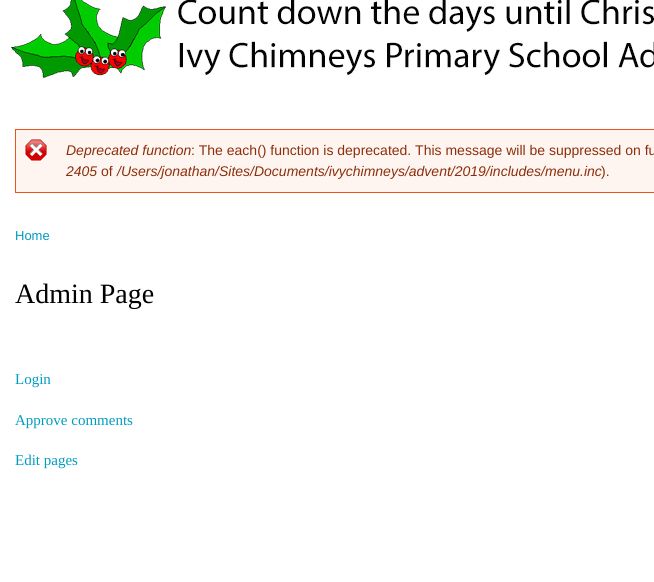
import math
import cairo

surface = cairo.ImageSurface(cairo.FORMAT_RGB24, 654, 582)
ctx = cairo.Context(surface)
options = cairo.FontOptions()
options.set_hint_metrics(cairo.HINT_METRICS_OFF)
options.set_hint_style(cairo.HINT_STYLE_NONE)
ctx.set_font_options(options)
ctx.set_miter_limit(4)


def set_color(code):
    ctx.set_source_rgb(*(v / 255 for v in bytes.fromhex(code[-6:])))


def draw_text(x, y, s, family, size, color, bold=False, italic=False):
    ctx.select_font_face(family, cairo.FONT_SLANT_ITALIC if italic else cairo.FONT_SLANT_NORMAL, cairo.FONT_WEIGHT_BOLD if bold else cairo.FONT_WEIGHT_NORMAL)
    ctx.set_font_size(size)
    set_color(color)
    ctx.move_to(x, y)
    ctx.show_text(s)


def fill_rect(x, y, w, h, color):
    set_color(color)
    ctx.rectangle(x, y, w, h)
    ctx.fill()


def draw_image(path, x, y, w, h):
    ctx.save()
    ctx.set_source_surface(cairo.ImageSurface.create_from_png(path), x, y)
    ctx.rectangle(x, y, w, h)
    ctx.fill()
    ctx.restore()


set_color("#ffffff")
ctx.paint()
draw_image("assets/img1.png", 11, 0, 643, 79)
fill_rect(16, 130, 638, 62, "#fef5f1")
draw_image("assets/img2.png", 24, 138, 24, 24)
ctx.rectangle(15.5, 129.5, 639, 63)
set_color("#ed541d")
ctx.set_line_width(1)
ctx.stroke()
draw_text(66, 155, "Deprecated function", "Liberation Sans", 14, "#8c2e0b", italic=True)
draw_text(191, 155, ": The each() function is deprecated. This message will be suppressed on fu", "Liberation Sans", 14, "#8c2e0b")
draw_text(66, 176, "2405", "Liberation Sans", 14, "#8c2e0b", italic=True)
draw_text(101, 176, "of", "Liberation Sans", 14, "#8c2e0b")
draw_text(117, 176, "/Users/jonathan/Sites/Documents/ivychimneys/advent/2019/includes/menu.inc", "Liberation Sans", 14, "#8c2e0b", italic=True)
draw_text(601, 176, ").", "Liberation Sans", 14, "#8c2e0b")
draw_text(15, 240, "Home", "Liberation Sans", 13, "#009cbf")
draw_text(15, 303, "Admin Page", "Liberation Serif", 28, "#000000")
draw_text(15, 384, "Login", "Liberation Serif", 15, "#009cbf")
draw_text(15, 425, "Approve comments", "Liberation Serif", 15, "#009cbf")
draw_text(15, 465, "Edit pages", "Liberation Serif", 15, "#009cbf")
surface.write_to_png("output.png")
